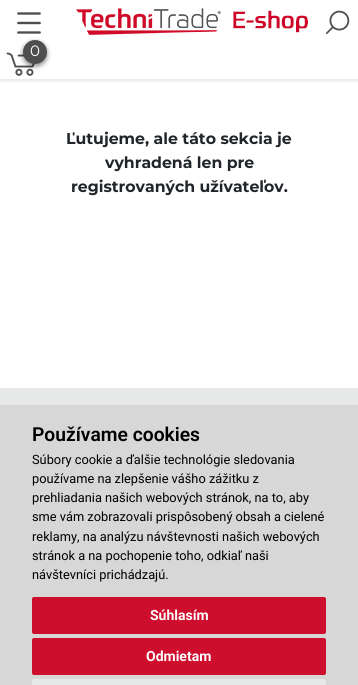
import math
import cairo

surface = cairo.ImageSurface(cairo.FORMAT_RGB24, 358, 685)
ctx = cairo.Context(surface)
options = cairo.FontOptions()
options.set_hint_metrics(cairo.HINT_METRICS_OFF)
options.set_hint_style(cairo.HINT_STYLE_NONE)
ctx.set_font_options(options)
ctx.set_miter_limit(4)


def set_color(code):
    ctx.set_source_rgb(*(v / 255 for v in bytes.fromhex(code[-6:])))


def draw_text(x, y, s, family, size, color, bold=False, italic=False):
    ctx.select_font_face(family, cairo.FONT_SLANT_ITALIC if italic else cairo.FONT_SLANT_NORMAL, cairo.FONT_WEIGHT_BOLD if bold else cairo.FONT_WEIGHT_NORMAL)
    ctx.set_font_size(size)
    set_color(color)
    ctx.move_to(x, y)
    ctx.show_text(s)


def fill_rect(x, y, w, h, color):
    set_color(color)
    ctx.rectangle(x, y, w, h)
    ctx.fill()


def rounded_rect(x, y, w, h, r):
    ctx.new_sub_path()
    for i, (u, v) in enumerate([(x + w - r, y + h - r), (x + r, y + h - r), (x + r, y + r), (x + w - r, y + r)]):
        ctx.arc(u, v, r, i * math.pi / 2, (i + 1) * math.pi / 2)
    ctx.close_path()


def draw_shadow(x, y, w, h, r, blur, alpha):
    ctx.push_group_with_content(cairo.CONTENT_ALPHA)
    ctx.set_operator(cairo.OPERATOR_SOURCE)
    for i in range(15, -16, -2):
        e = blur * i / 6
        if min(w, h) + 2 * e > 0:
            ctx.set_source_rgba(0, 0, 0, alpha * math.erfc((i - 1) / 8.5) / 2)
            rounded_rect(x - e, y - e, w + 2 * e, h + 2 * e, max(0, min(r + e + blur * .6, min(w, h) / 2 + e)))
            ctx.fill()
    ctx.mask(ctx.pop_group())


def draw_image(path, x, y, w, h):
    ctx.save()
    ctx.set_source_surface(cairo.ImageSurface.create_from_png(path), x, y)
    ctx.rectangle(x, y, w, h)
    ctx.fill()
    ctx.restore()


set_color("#ffffff")
ctx.paint()
ctx.save()
ctx.rectangle(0, 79, 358, 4)
ctx.clip()
set_color("#010202")
draw_shadow(0, 2, 358, 79, 0, 2, 0.1)
ctx.restore()
draw_image("assets/img1.png", 17, 12, 24, 22)
draw_image("assets/img2.png", 76, 8, 232, 27)
draw_image("assets/img3.png", 325, 10, 25, 24)
draw_image("assets/img4.png", 6, 52, 29, 24)
set_color("#010202")
draw_shadow(23, 42, 24, 24, 12, 2.5, 0.5)
set_color("#4e4e4e")
ctx.arc(35, 52, 12, 0, 2 * math.pi)
ctx.fill()
draw_text(30, 56, "0", "Montserrat", 15, "#ffffff")
draw_text(66, 144, "Ľutujeme, ale táto sekcia je", "Montserrat", 15.7, "#212529", bold=True)
draw_text(105, 168, "vyhradená len pre", "Montserrat", 15.7, "#212529", bold=True)
draw_text(71, 192, "registrovaných užívateľov.", "Montserrat", 15.7, "#212529", bold=True)
fill_rect(0, 388, 358, 17, "#e7e8e8")
fill_rect(0, 405, 358, 280, "#d7d7d7")
draw_text(32, 441, "Používame cookies", "Roboto SemiBold", 19.25, "#000000")
draw_text(32, 464, "Súbory cookie a ďalšie technológie sledovania", "Roboto", 12.8, "#000000")
draw_text(32, 483, "používame na zlepšenie vášho zážitku z", "Roboto", 12.8, "#000000")
draw_text(32, 502, "prehliadania našich webových stránok, na to, aby", "Roboto", 12.8, "#000000")
draw_text(32, 521, "sme vám zobrazovali prispôsobený obsah a cielené", "Roboto", 12.8, "#000000")
draw_text(32, 541, "reklamy, na analýzu návštevnosti našich webových", "Roboto", 12.8, "#000000")
draw_text(32, 560, "stránok a na pochopenie toho, odkiaľ naši", "Roboto", 12.8, "#000000")
draw_text(32, 579, "návštevníci prichádzajú.", "Roboto", 12.8, "#000000")
set_color("#ce0e2d")
rounded_rect(32, 597, 294, 37, 2)
ctx.fill()
draw_text(150, 620, "Súhlasím", "Roboto", 14, "#ffffff", bold=True)
set_color("#ce0e2d")
rounded_rect(32, 638, 294, 37, 2)
ctx.fill()
draw_text(146, 661, "Odmietam", "Roboto", 14, "#ffffff", bold=True)
set_color("#e7e8e8")
ctx.new_path()
ctx.move_to(34, 679)
ctx.line_to(324, 679)
ctx.curve_to(325, 679, 326, 680, 326, 681)
ctx.line_to(326, 685)
ctx.line_to(32, 685)
ctx.line_to(32, 681)
ctx.curve_to(32, 680, 33, 679, 34, 679)
ctx.close_path()
ctx.fill()
surface.write_to_png("output.png")
